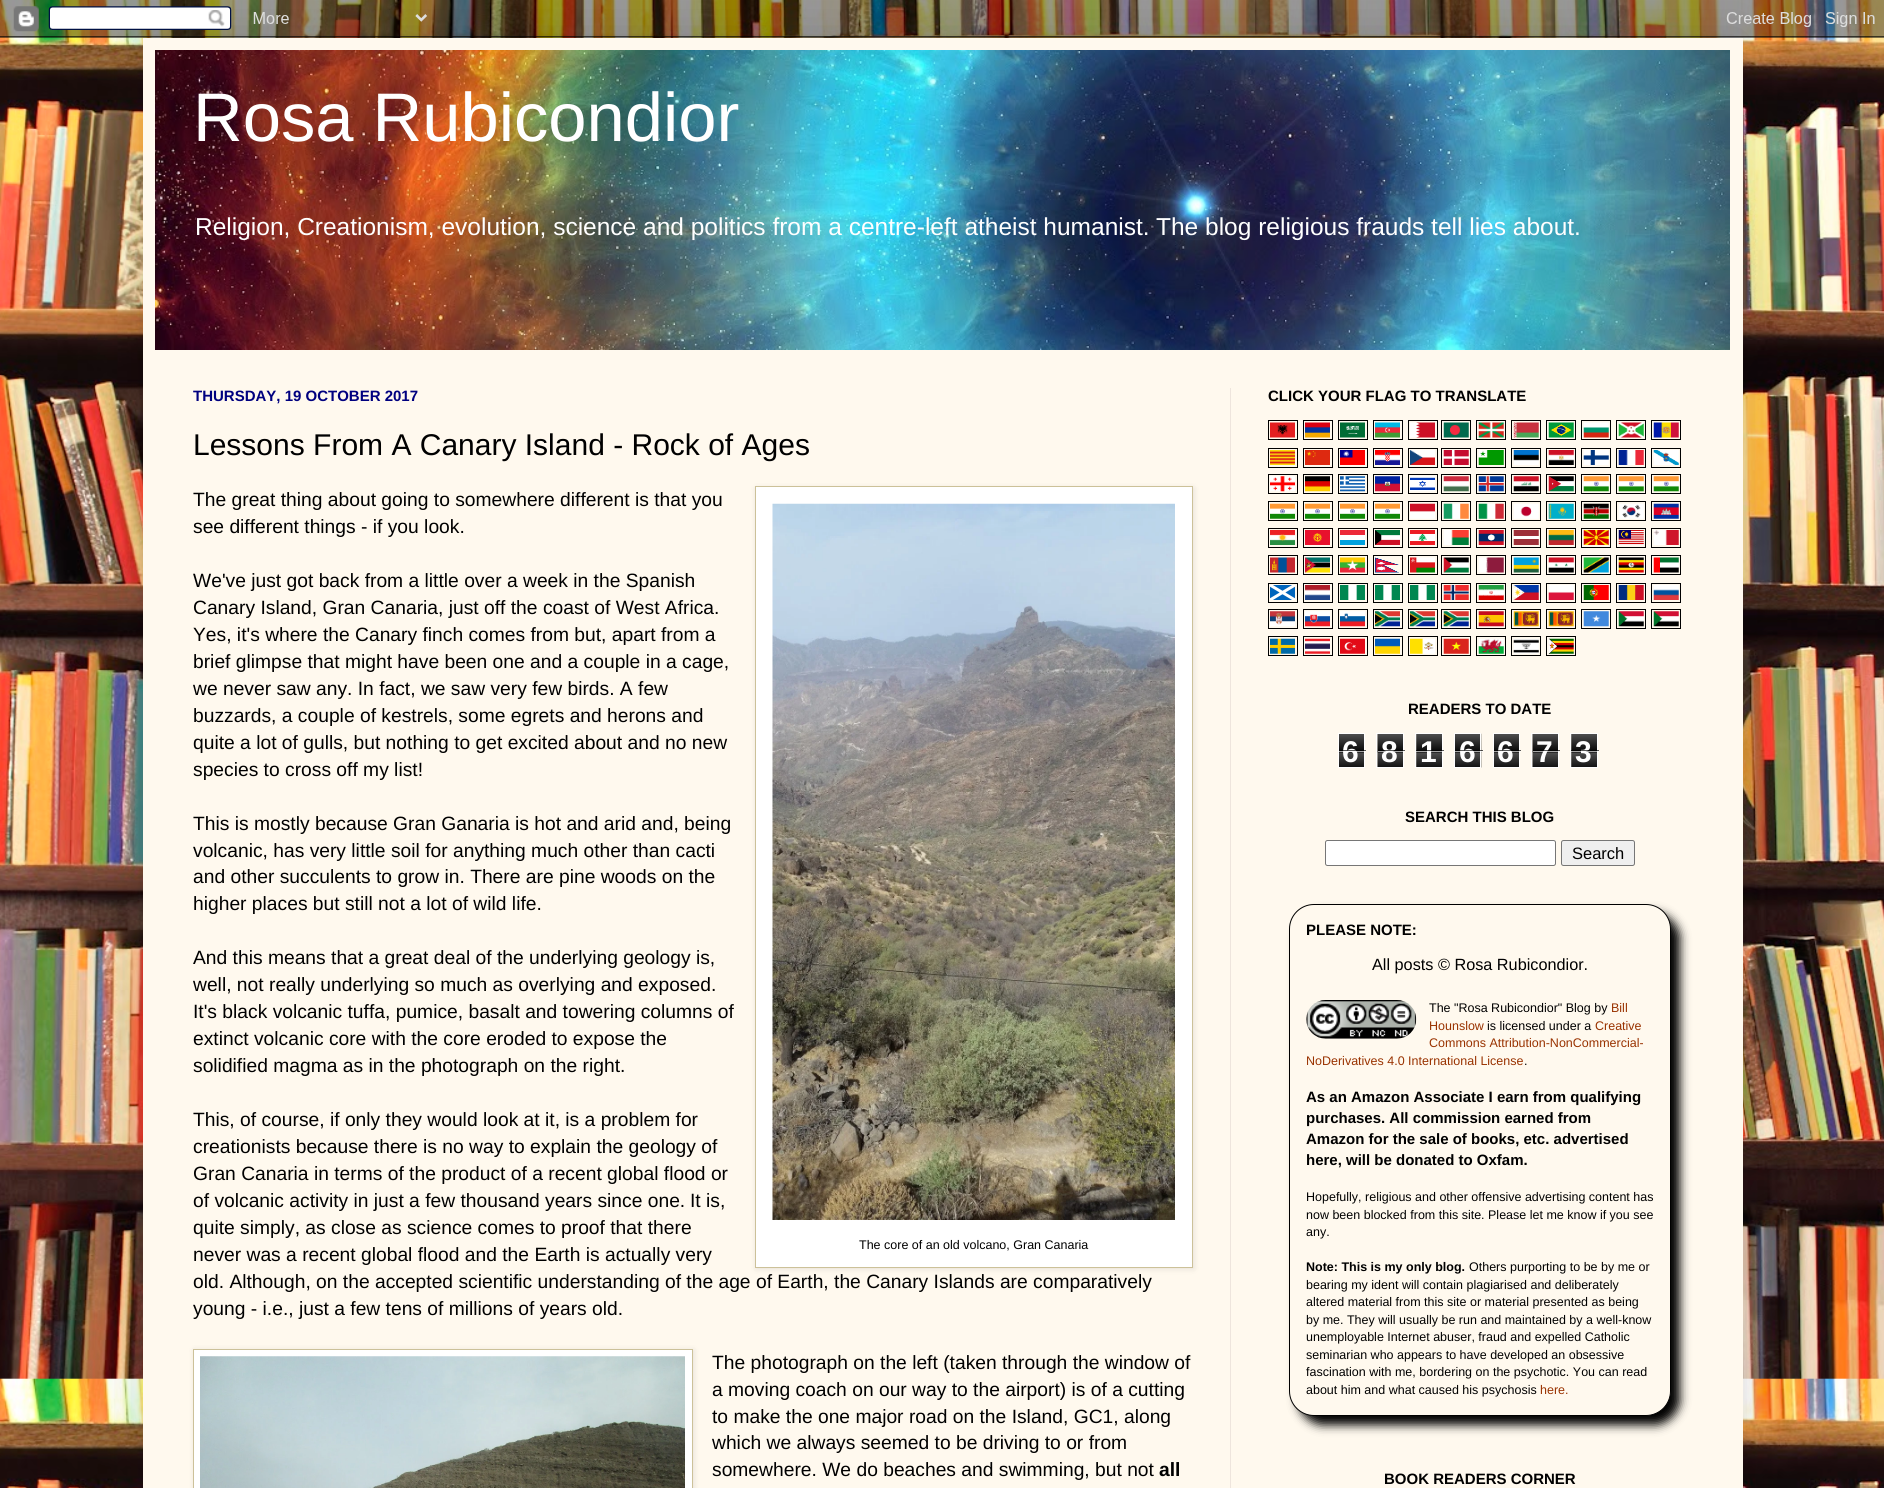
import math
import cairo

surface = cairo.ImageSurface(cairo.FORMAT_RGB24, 1884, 1488)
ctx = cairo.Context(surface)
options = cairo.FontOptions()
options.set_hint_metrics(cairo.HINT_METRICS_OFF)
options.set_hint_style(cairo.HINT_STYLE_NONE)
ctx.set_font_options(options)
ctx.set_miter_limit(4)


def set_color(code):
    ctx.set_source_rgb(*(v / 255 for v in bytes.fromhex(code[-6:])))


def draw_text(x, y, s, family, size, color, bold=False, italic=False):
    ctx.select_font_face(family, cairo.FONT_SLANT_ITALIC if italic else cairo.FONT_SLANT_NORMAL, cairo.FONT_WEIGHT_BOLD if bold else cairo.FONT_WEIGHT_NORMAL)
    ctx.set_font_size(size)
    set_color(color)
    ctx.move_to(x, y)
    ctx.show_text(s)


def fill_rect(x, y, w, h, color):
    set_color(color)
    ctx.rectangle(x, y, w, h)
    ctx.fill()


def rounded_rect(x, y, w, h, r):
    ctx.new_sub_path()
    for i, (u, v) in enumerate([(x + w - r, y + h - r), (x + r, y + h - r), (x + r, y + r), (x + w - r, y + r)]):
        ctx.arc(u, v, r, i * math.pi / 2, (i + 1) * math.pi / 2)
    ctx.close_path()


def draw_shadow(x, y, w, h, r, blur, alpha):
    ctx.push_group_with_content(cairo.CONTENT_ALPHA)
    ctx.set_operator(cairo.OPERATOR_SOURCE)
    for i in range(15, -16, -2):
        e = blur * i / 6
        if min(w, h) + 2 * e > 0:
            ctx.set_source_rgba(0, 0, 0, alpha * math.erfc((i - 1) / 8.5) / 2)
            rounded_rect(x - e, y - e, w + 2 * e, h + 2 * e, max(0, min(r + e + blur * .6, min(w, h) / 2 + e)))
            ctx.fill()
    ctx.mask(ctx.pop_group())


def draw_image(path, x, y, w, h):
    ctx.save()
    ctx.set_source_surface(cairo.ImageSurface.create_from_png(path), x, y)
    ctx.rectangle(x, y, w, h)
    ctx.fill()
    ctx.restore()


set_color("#ffffff")
ctx.paint()
draw_image("assets/img1.png", 0, 500, 1884, 988)
draw_image("assets/img2.png", 0, 0, 1884, 500)
set_color("#000000")
draw_shadow(143, 38, 1600, 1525, 0, 25, 0.15)
draw_image("assets/img3.png", 0, 0, 1884, 38)
fill_rect(143, 38, 1600, 1450, "#fff9ee")
draw_image("assets/img4.png", 155, 50, 1575, 300)
draw_text(193, 141, "Rosa Rubicondior", "Liberation Sans", 68.75, "#ffffff")
draw_text(195, 235, "Religion, Creationism, evolution, science and politics from a centre-left atheist humanist.", "Liberation Sans", 24.5, "#ffffff")
draw_text(1156, 235, "The blog religious frauds tell lies about.", "Liberation Sans", 24.5, "#ffffff")
fill_rect(1230, 388, 1, 1100, "#eee5dd")
draw_text(193, 401, "THURSDAY, 19 OCTOBER 2017", "Liberation Sans", 15, "#00007f", bold=True)
draw_text(193, 455, "Lessons From A Canary Island - Rock of Ages", "Liberation Sans", 30, "#000000")
draw_text(193, 506, "The great thing about going to somewhere different is that you", "Liberation Sans", 19.25, "#000000")
draw_text(193, 533, "see different things - if you look.", "Liberation Sans", 19.25, "#000000")
draw_text(193, 587, "We've just got back from a little over a week in the Spanish", "Liberation Sans", 19.25, "#000000")
draw_text(193, 614, "Canary Island, Gran Canaria, just off the coast of West Africa.", "Liberation Sans", 19.25, "#000000")
draw_text(193, 641, "Yes, it's where the Canary finch comes from but, apart from a", "Liberation Sans", 19.25, "#000000")
draw_text(193, 668, "brief glimpse that might have been one and a couple in a cage,", "Liberation Sans", 19.25, "#000000")
draw_text(193, 695, "we never saw any. In fact, we saw very few birds. A few", "Liberation Sans", 19.25, "#000000")
draw_text(193, 722, "buzzards, a couple of kestrels, some egrets and herons and", "Liberation Sans", 19.25, "#000000")
draw_text(193, 749, "quite a lot of gulls, but nothing to get excited about and no new", "Liberation Sans", 19.25, "#000000")
draw_text(193, 776, "species to cross off my list!", "Liberation Sans", 19.25, "#000000")
draw_text(193, 830, "This is mostly because Gran Ganaria is hot and arid and, being", "Liberation Sans", 19.25, "#000000")
draw_text(193, 857, "volcanic, has very little soil for anything much other than cacti", "Liberation Sans", 19.25, "#000000")
draw_text(193, 883, "and other succulents to grow in. There are pine woods on the", "Liberation Sans", 19.25, "#000000")
draw_text(193, 910, "higher places but still not a lot of wild life.", "Liberation Sans", 19.25, "#000000")
draw_text(193, 964, "And this means that a great deal of the underlying geology is,", "Liberation Sans", 19.25, "#000000")
draw_text(193, 991, "well, not really underlying so much as overlying and exposed.", "Liberation Sans", 19.25, "#000000")
draw_text(193, 1018, "It's black volcanic tuffa, pumice, basalt and towering columns of", "Liberation Sans", 19.25, "#000000")
draw_text(193, 1045, "extinct volcanic core with the core eroded to expose the", "Liberation Sans", 19.25, "#000000")
draw_text(193, 1072, "solidified magma as in the photograph on the right.", "Liberation Sans", 19.25, "#000000")
draw_text(193, 1126, "This, of course, if only they would look at it, is a problem for", "Liberation Sans", 19.25, "#000000")
draw_text(193, 1153, "creationists because there is no way to explain the geology of", "Liberation Sans", 19.25, "#000000")
draw_text(193, 1180, "Gran Canaria in terms of the product of a recent global flood or", "Liberation Sans", 19.25, "#000000")
draw_text(193, 1207, "of volcanic activity in just a few thousand years since one.", "Liberation Sans", 19.25, "#000000")
draw_text(690, 1207, "It is,", "Liberation Sans", 19.25, "#000000")
draw_text(193, 1234, "quite simply, as close as science comes to proof that there", "Liberation Sans", 19.25, "#000000")
set_color("#000000")
draw_shadow(756, 488, 438, 781, 0, 3, 0.1)
set_color("#ffffff")
ctx.rectangle(755.5, 486.5, 437, 781)
ctx.fill_preserve()
set_color("#ccc199")
ctx.set_line_width(1)
ctx.stroke()
draw_image("assets/img5.png", 772, 503, 403, 717)
draw_text(859, 1249, "The core of an old volcano, Gran Canaria", "Liberation Sans", 12.5, "#000000")
draw_text(193, 1261, "never was a recent global flood and the Earth is actually very", "Liberation Sans", 19.25, "#000000")
draw_text(193, 1288, "old. Although, on the accepted scientific understanding of the age of Earth, the Canary Islands are comparatively", "Liberation Sans", 19.25, "#000000")
draw_text(193, 1315, "young - i.e., just a few tens of millions of years old.", "Liberation Sans", 19.25, "#000000")
set_color("#000000")
draw_shadow(194, 1350, 500, 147, 0, 3, 0.1)
set_color("#ffffff")
ctx.rectangle(193.5, 1349.5, 499, 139)
ctx.fill_preserve()
set_color("#ccc199")
ctx.stroke()
draw_image("assets/img6.png", 200, 1356, 485, 132)
draw_text(712, 1369, "The photograph on the left (taken through the window of", "Liberation Sans", 19.25, "#000000")
draw_text(712, 1396, "a moving coach on our way to the airport) is of a cutting", "Liberation Sans", 19.25, "#000000")
draw_text(712, 1423, "to make the one major road on the Island, GC1, along", "Liberation Sans", 19.25, "#000000")
draw_text(712, 1449, "which we always seemed to be driving to or from", "Liberation Sans", 19.25, "#000000")
draw_text(712, 1476, "somewhere. We do beaches and swimming, but not", "Liberation Sans", 19.25, "#000000")
draw_text(1159, 1476, "all", "Liberation Sans", 19.25, "#000000", bold=True)
draw_text(1268, 401, "CLICK YOUR FLAG TO TRANSLATE", "Liberation Sans", 15, "#000000", bold=True)
ctx.rectangle(1268.5, 420.5, 29, 19)
ctx.stroke()
draw_image("assets/img7.png", 1270, 422, 25, 16)
ctx.rectangle(1303.5, 420.5, 29, 19)
ctx.stroke()
draw_image("assets/img8.png", 1305, 422, 25, 16)
ctx.rectangle(1338.5, 420.5, 29, 19)
ctx.stroke()
draw_image("assets/img9.png", 1340, 422, 25, 16)
ctx.rectangle(1373.5, 420.5, 29, 19)
ctx.stroke()
draw_image("assets/img10.png", 1375, 422, 25, 16)
ctx.rectangle(1408.5, 420.5, 29, 19)
ctx.stroke()
draw_image("assets/img11.png", 1410, 422, 25, 16)
ctx.rectangle(1441.5, 420.5, 29, 19)
ctx.stroke()
draw_image("assets/img12.png", 1443, 422, 26, 16)
ctx.rectangle(1476.5, 420.5, 29, 19)
ctx.stroke()
draw_image("assets/img13.png", 1478, 422, 26, 16)
ctx.rectangle(1511.5, 420.5, 29, 19)
ctx.stroke()
draw_image("assets/img14.png", 1513, 422, 26, 16)
ctx.rectangle(1546.5, 420.5, 29, 19)
ctx.stroke()
draw_image("assets/img15.png", 1548, 422, 26, 16)
ctx.rectangle(1581.5, 420.5, 29, 19)
ctx.stroke()
draw_image("assets/img16.png", 1583, 422, 26, 16)
ctx.rectangle(1616.5, 420.5, 29, 19)
ctx.stroke()
draw_image("assets/img17.png", 1618, 422, 26, 16)
ctx.rectangle(1651.5, 420.5, 29, 19)
ctx.stroke()
draw_image("assets/img18.png", 1653, 422, 26, 16)
ctx.rectangle(1268.5, 448.5, 29, 19)
ctx.stroke()
draw_image("assets/img19.png", 1270, 450, 25, 15)
ctx.rectangle(1303.5, 448.5, 29, 19)
ctx.stroke()
draw_image("assets/img20.png", 1305, 450, 25, 15)
ctx.rectangle(1338.5, 448.5, 29, 19)
ctx.stroke()
draw_image("assets/img21.png", 1340, 450, 25, 15)
ctx.rectangle(1373.5, 448.5, 29, 19)
ctx.stroke()
draw_image("assets/img22.png", 1375, 450, 25, 15)
ctx.rectangle(1408.5, 448.5, 29, 19)
ctx.stroke()
draw_image("assets/img23.png", 1410, 450, 25, 15)
ctx.rectangle(1441.5, 448.5, 29, 19)
ctx.stroke()
draw_image("assets/img24.png", 1443, 450, 26, 15)
ctx.rectangle(1476.5, 448.5, 29, 19)
ctx.stroke()
draw_image("assets/img25.png", 1478, 450, 26, 15)
ctx.rectangle(1511.5, 448.5, 29, 19)
ctx.stroke()
draw_image("assets/img26.png", 1513, 450, 26, 15)
ctx.rectangle(1546.5, 448.5, 29, 19)
ctx.stroke()
draw_image("assets/img27.png", 1548, 450, 26, 15)
ctx.rectangle(1581.5, 448.5, 29, 19)
ctx.stroke()
draw_image("assets/img28.png", 1583, 450, 26, 15)
ctx.rectangle(1616.5, 448.5, 29, 19)
ctx.stroke()
draw_image("assets/img29.png", 1618, 450, 26, 15)
ctx.rectangle(1651.5, 448.5, 29, 19)
ctx.stroke()
draw_image("assets/img30.png", 1653, 450, 26, 15)
ctx.rectangle(1268.5, 474.5, 29, 19)
ctx.stroke()
draw_image("assets/img31.png", 1270, 476, 25, 16)
ctx.rectangle(1303.5, 474.5, 29, 19)
ctx.stroke()
draw_image("assets/img32.png", 1305, 476, 25, 16)
ctx.rectangle(1338.5, 474.5, 29, 19)
ctx.stroke()
draw_image("assets/img33.png", 1340, 476, 25, 16)
ctx.rectangle(1373.5, 474.5, 29, 19)
ctx.stroke()
draw_image("assets/img34.png", 1375, 476, 25, 16)
ctx.rectangle(1408.5, 474.5, 29, 19)
ctx.stroke()
draw_image("assets/img35.png", 1410, 476, 25, 16)
ctx.rectangle(1441.5, 474.5, 29, 19)
ctx.stroke()
draw_image("assets/img36.png", 1443, 476, 26, 16)
ctx.rectangle(1476.5, 474.5, 29, 19)
ctx.stroke()
draw_image("assets/img37.png", 1478, 476, 26, 16)
ctx.rectangle(1511.5, 474.5, 29, 19)
ctx.stroke()
draw_image("assets/img38.png", 1513, 476, 26, 16)
ctx.rectangle(1546.5, 474.5, 29, 19)
ctx.stroke()
draw_image("assets/img39.png", 1548, 476, 26, 16)
ctx.rectangle(1581.5, 474.5, 29, 19)
ctx.stroke()
draw_image("assets/img40.png", 1583, 476, 26, 16)
ctx.rectangle(1616.5, 474.5, 29, 19)
ctx.stroke()
draw_image("assets/img40.png", 1618, 476, 26, 16)
ctx.rectangle(1651.5, 474.5, 29, 19)
ctx.stroke()
draw_image("assets/img40.png", 1653, 476, 26, 16)
ctx.rectangle(1268.5, 501.5, 29, 19)
ctx.stroke()
draw_image("assets/img41.png", 1270, 503, 25, 16)
ctx.rectangle(1303.5, 501.5, 29, 19)
ctx.stroke()
draw_image("assets/img41.png", 1305, 503, 25, 16)
ctx.rectangle(1338.5, 501.5, 29, 19)
ctx.stroke()
draw_image("assets/img41.png", 1340, 503, 25, 16)
ctx.rectangle(1373.5, 501.5, 29, 19)
ctx.stroke()
draw_image("assets/img41.png", 1375, 503, 25, 16)
ctx.rectangle(1408.5, 501.5, 29, 19)
ctx.stroke()
draw_image("assets/img42.png", 1410, 503, 25, 16)
ctx.rectangle(1441.5, 501.5, 29, 19)
ctx.stroke()
draw_image("assets/img43.png", 1443, 503, 26, 16)
ctx.rectangle(1476.5, 501.5, 29, 19)
ctx.stroke()
draw_image("assets/img44.png", 1478, 503, 26, 16)
ctx.rectangle(1511.5, 501.5, 29, 19)
ctx.stroke()
draw_image("assets/img45.png", 1513, 503, 26, 16)
ctx.rectangle(1546.5, 501.5, 29, 19)
ctx.stroke()
draw_image("assets/img46.png", 1548, 503, 26, 16)
ctx.rectangle(1581.5, 501.5, 29, 19)
ctx.stroke()
draw_image("assets/img47.png", 1583, 503, 26, 16)
ctx.rectangle(1616.5, 501.5, 29, 19)
ctx.stroke()
draw_image("assets/img48.png", 1618, 503, 26, 16)
ctx.rectangle(1651.5, 501.5, 29, 19)
ctx.stroke()
draw_image("assets/img49.png", 1653, 503, 26, 16)
ctx.rectangle(1268.5, 528.5, 29, 19)
ctx.stroke()
draw_image("assets/img50.png", 1270, 530, 25, 15)
ctx.rectangle(1303.5, 528.5, 29, 19)
ctx.stroke()
draw_image("assets/img51.png", 1305, 530, 25, 15)
ctx.rectangle(1338.5, 528.5, 29, 19)
ctx.stroke()
draw_image("assets/img52.png", 1340, 530, 25, 15)
ctx.rectangle(1373.5, 528.5, 29, 19)
ctx.stroke()
draw_image("assets/img53.png", 1375, 530, 25, 15)
ctx.rectangle(1408.5, 528.5, 29, 19)
ctx.stroke()
draw_image("assets/img54.png", 1410, 530, 25, 15)
ctx.rectangle(1441.5, 528.5, 29, 19)
ctx.stroke()
draw_image("assets/img55.png", 1443, 530, 26, 15)
ctx.rectangle(1476.5, 528.5, 29, 19)
ctx.stroke()
draw_image("assets/img56.png", 1478, 530, 26, 15)
ctx.rectangle(1511.5, 528.5, 29, 19)
ctx.stroke()
draw_image("assets/img57.png", 1513, 530, 26, 15)
ctx.rectangle(1546.5, 528.5, 29, 19)
ctx.stroke()
draw_image("assets/img58.png", 1548, 530, 26, 15)
ctx.rectangle(1581.5, 528.5, 29, 19)
ctx.stroke()
draw_image("assets/img59.png", 1583, 530, 26, 15)
ctx.rectangle(1616.5, 528.5, 29, 19)
ctx.stroke()
draw_image("assets/img60.png", 1618, 530, 26, 15)
ctx.rectangle(1651.5, 528.5, 29, 19)
ctx.stroke()
draw_image("assets/img61.png", 1653, 530, 26, 15)
ctx.rectangle(1268.5, 555.5, 29, 19)
ctx.stroke()
draw_image("assets/img62.png", 1270, 557, 25, 16)
ctx.rectangle(1303.5, 555.5, 29, 19)
ctx.stroke()
draw_image("assets/img63.png", 1305, 557, 25, 16)
ctx.rectangle(1338.5, 555.5, 29, 19)
ctx.stroke()
draw_image("assets/img64.png", 1340, 557, 25, 16)
ctx.rectangle(1373.5, 555.5, 29, 19)
ctx.stroke()
draw_image("assets/img65.png", 1375, 557, 24, 16)
ctx.rectangle(1408.5, 555.5, 29, 19)
ctx.stroke()
draw_image("assets/img66.png", 1410, 557, 25, 16)
ctx.rectangle(1441.5, 555.5, 29, 19)
ctx.stroke()
draw_image("assets/img67.png", 1443, 557, 26, 16)
ctx.rectangle(1476.5, 555.5, 29, 19)
ctx.stroke()
draw_image("assets/img68.png", 1478, 557, 26, 16)
ctx.rectangle(1511.5, 555.5, 29, 19)
ctx.stroke()
draw_image("assets/img69.png", 1513, 557, 26, 16)
ctx.rectangle(1546.5, 555.5, 29, 19)
ctx.stroke()
draw_image("assets/img70.png", 1548, 557, 26, 16)
ctx.rectangle(1581.5, 555.5, 29, 19)
ctx.stroke()
draw_image("assets/img71.png", 1583, 557, 26, 16)
ctx.rectangle(1616.5, 555.5, 29, 19)
ctx.stroke()
draw_image("assets/img72.png", 1618, 557, 26, 16)
ctx.rectangle(1651.5, 555.5, 29, 19)
ctx.stroke()
draw_image("assets/img73.png", 1653, 557, 26, 16)
ctx.rectangle(1268.5, 583.5, 29, 19)
ctx.stroke()
draw_image("assets/img74.png", 1270, 585, 25, 15)
ctx.rectangle(1303.5, 583.5, 29, 19)
ctx.stroke()
draw_image("assets/img75.png", 1305, 585, 25, 15)
ctx.rectangle(1338.5, 583.5, 29, 19)
ctx.stroke()
draw_image("assets/img76.png", 1340, 585, 25, 15)
ctx.rectangle(1373.5, 583.5, 29, 19)
ctx.stroke()
draw_image("assets/img76.png", 1375, 585, 25, 15)
ctx.rectangle(1408.5, 583.5, 29, 19)
ctx.stroke()
draw_image("assets/img76.png", 1410, 585, 25, 15)
ctx.rectangle(1441.5, 583.5, 29, 19)
ctx.stroke()
draw_image("assets/img77.png", 1443, 585, 26, 15)
ctx.rectangle(1476.5, 583.5, 29, 19)
ctx.stroke()
draw_image("assets/img78.png", 1478, 585, 26, 15)
ctx.rectangle(1511.5, 583.5, 29, 19)
ctx.stroke()
draw_image("assets/img79.png", 1513, 585, 26, 15)
ctx.rectangle(1546.5, 583.5, 29, 19)
ctx.stroke()
draw_image("assets/img80.png", 1548, 585, 26, 15)
ctx.rectangle(1581.5, 583.5, 29, 19)
ctx.stroke()
draw_image("assets/img81.png", 1583, 585, 26, 15)
ctx.rectangle(1616.5, 583.5, 29, 19)
ctx.stroke()
draw_image("assets/img82.png", 1618, 585, 26, 15)
ctx.rectangle(1651.5, 583.5, 29, 19)
ctx.stroke()
draw_image("assets/img83.png", 1653, 585, 26, 15)
ctx.rectangle(1268.5, 609.5, 29, 19)
ctx.stroke()
draw_image("assets/img84.png", 1270, 611, 25, 16)
ctx.rectangle(1303.5, 609.5, 29, 19)
ctx.stroke()
draw_image("assets/img85.png", 1305, 611, 25, 16)
ctx.rectangle(1338.5, 609.5, 29, 19)
ctx.stroke()
draw_image("assets/img86.png", 1340, 611, 25, 16)
ctx.rectangle(1373.5, 609.5, 29, 19)
ctx.stroke()
draw_image("assets/img87.png", 1375, 611, 25, 16)
ctx.rectangle(1408.5, 609.5, 29, 19)
ctx.stroke()
draw_image("assets/img87.png", 1410, 611, 25, 16)
ctx.rectangle(1441.5, 609.5, 29, 19)
ctx.stroke()
draw_image("assets/img88.png", 1443, 611, 26, 16)
ctx.rectangle(1476.5, 609.5, 29, 19)
ctx.stroke()
draw_image("assets/img89.png", 1478, 611, 26, 16)
ctx.rectangle(1511.5, 609.5, 29, 19)
ctx.stroke()
draw_image("assets/img90.png", 1513, 611, 26, 16)
ctx.rectangle(1546.5, 609.5, 29, 19)
ctx.stroke()
draw_image("assets/img91.png", 1548, 611, 26, 16)
ctx.rectangle(1581.5, 609.5, 29, 19)
ctx.stroke()
draw_image("assets/img92.png", 1583, 611, 26, 16)
ctx.rectangle(1616.5, 609.5, 29, 19)
ctx.stroke()
draw_image("assets/img93.png", 1618, 611, 26, 16)
ctx.rectangle(1651.5, 609.5, 29, 19)
ctx.stroke()
draw_image("assets/img93.png", 1653, 611, 26, 16)
ctx.rectangle(1268.5, 636.5, 29, 19)
ctx.stroke()
draw_image("assets/img94.png", 1270, 638, 25, 16)
ctx.rectangle(1303.5, 636.5, 29, 19)
ctx.stroke()
draw_image("assets/img95.png", 1305, 638, 25, 16)
ctx.rectangle(1338.5, 636.5, 29, 19)
ctx.stroke()
draw_image("assets/img96.png", 1340, 638, 25, 16)
ctx.rectangle(1373.5, 636.5, 29, 19)
ctx.stroke()
draw_image("assets/img97.png", 1375, 638, 25, 16)
ctx.rectangle(1408.5, 636.5, 29, 19)
ctx.stroke()
draw_image("assets/img98.png", 1410, 638, 25, 16)
ctx.rectangle(1441.5, 636.5, 29, 19)
ctx.stroke()
draw_image("assets/img99.png", 1443, 638, 26, 16)
ctx.rectangle(1476.5, 636.5, 29, 19)
ctx.stroke()
draw_image("assets/img100.png", 1478, 638, 26, 16)
ctx.rectangle(1511.5, 636.5, 29, 19)
ctx.stroke()
draw_image("assets/img101.png", 1513, 638, 26, 16)
ctx.rectangle(1546.5, 636.5, 29, 19)
ctx.stroke()
draw_image("assets/img102.png", 1548, 638, 26, 16)
draw_text(1408, 714, "READERS TO DATE", "Liberation Sans", 15, "#000000", bold=True)
draw_image("assets/img103.png", 1339, 734, 25, 33)
ctx.rectangle(1338.5, 733.5, 26, 34)
set_color("#ffffff")
ctx.stroke()
draw_text(1342, 762, "6", "Liberation Sans", 30, "#ffffff", bold=True)
ctx.set_source_rgba(0, 0, 0, 0.65)
ctx.rectangle(1339, 750, 27, 1)
ctx.fill()
ctx.set_source_rgba(1, 1, 1, 0.65)
ctx.rectangle(1339, 751, 27, 1)
ctx.fill()
draw_image("assets/img104.png", 1377, 734, 26, 33)
ctx.rectangle(1376.5, 733.5, 27, 34)
set_color("#ffffff")
ctx.stroke()
draw_text(1381, 762, "8", "Liberation Sans", 30, "#ffffff", bold=True)
ctx.set_source_rgba(0, 0, 0, 0.65)
ctx.rectangle(1378, 750, 27, 1)
ctx.fill()
ctx.set_source_rgba(1, 1, 1, 0.65)
ctx.rectangle(1378, 751, 27, 1)
ctx.fill()
draw_image("assets/img105.png", 1416, 734, 26, 33)
ctx.rectangle(1415.5, 733.5, 27, 34)
set_color("#ffffff")
ctx.stroke()
draw_text(1420, 762, "1", "Liberation Sans", 30, "#ffffff", bold=True)
ctx.set_source_rgba(0, 0, 0, 0.65)
ctx.rectangle(1416, 750, 28, 1)
ctx.fill()
ctx.set_source_rgba(1, 1, 1, 0.65)
ctx.rectangle(1416, 751, 28, 1)
ctx.fill()
draw_image("assets/img106.png", 1455, 733, 27, 35)
ctx.rectangle(1454.5, 733.5, 26, 34)
set_color("#ffffff")
ctx.stroke()
draw_text(1459, 762, "6", "Liberation Sans", 30, "#ffffff", bold=True)
ctx.set_source_rgba(0, 0, 0, 0.65)
ctx.rectangle(1455, 750, 28, 1)
ctx.fill()
ctx.set_source_rgba(1, 1, 1, 0.65)
ctx.rectangle(1455, 751, 28, 1)
ctx.fill()
draw_image("assets/img103.png", 1494, 734, 25, 33)
ctx.rectangle(1493.5, 733.5, 26, 34)
set_color("#ffffff")
ctx.stroke()
draw_text(1497, 762, "6", "Liberation Sans", 30, "#ffffff", bold=True)
ctx.set_source_rgba(0, 0, 0, 0.65)
ctx.rectangle(1494, 750, 27, 1)
ctx.fill()
ctx.set_source_rgba(1, 1, 1, 0.65)
ctx.rectangle(1494, 751, 27, 1)
ctx.fill()
draw_image("assets/img104.png", 1532, 734, 26, 33)
ctx.rectangle(1531.5, 733.5, 27, 34)
set_color("#ffffff")
ctx.stroke()
draw_text(1536, 762, "7", "Liberation Sans", 30, "#ffffff", bold=True)
ctx.set_source_rgba(0, 0, 0, 0.65)
ctx.rectangle(1533, 750, 27, 1)
ctx.fill()
ctx.set_source_rgba(1, 1, 1, 0.65)
ctx.rectangle(1533, 751, 27, 1)
ctx.fill()
draw_image("assets/img105.png", 1571, 734, 26, 33)
ctx.rectangle(1570.5, 733.5, 27, 34)
set_color("#ffffff")
ctx.stroke()
draw_text(1575, 762, "3", "Liberation Sans", 30, "#ffffff", bold=True)
ctx.set_source_rgba(0, 0, 0, 0.65)
ctx.rectangle(1571, 750, 28, 1)
ctx.fill()
ctx.set_source_rgba(1, 1, 1, 0.65)
ctx.rectangle(1571, 751, 28, 1)
ctx.fill()
draw_text(1405, 822, "SEARCH THIS BLOG", "Liberation Sans", 15, "#000000", bold=True)
set_color("#ffffff")
rounded_rect(1325.5, 840.5, 230, 25, 2)
ctx.fill_preserve()
set_color("#767676")
ctx.stroke()
set_color("#efefef")
rounded_rect(1561.5, 840.5, 73, 25, 2)
ctx.fill_preserve()
set_color("#767676")
ctx.stroke()
draw_text(1572, 859, "Search", "Liberation Sans", 16.5, "#000000")
set_color("#000000")
draw_shadow(1298, 913, 382, 512, 25, 5, 1)
set_color("#fff9ee")
rounded_rect(1289.5, 904.5, 381, 511, 24.5)
ctx.fill_preserve()
set_color("#000000")
ctx.stroke()
draw_text(1306, 935, "PLEASE NOTE:", "Liberation Sans", 15, "#000000", bold=True)
draw_text(1372, 970, "All posts © Rosa Rubicondior.", "Liberation Sans", 16.25, "#000000")
draw_image("assets/img107.png", 1306, 1000, 111, 39)
draw_text(1429, 1012, "The \"Rosa Rubicondior\" Blog by", "Liberation Sans", 12.5, "#000000")
draw_text(1611, 1012, "Bill", "Liberation Sans", 12.5, "#993200")
draw_text(1429, 1030, "Hounslow", "Liberation Sans", 12.5, "#993200")
draw_text(1487, 1030, "is licensed under a", "Liberation Sans", 12.5, "#000000")
draw_text(1595, 1030, "Creative", "Liberation Sans", 12.5, "#993200")
draw_text(1429, 1047, "Commons Attribution-NonCommercial-", "Liberation Sans", 12.5, "#993200")
draw_text(1306, 1065, "NoDerivatives 4.0 International License", "Liberation Sans", 12.5, "#993200")
draw_text(1524, 1065, ".", "Liberation Sans", 12.5, "#000000")
draw_text(1306, 1102, "As an Amazon Associate I earn from qualifying", "Liberation Sans", 15, "#000000", bold=True)
draw_text(1306, 1123, "purchases. All commission earned from", "Liberation Sans", 15, "#000000", bold=True)
draw_text(1306, 1144, "Amazon for the sale of books, etc. advertised", "Liberation Sans", 15, "#000000", bold=True)
draw_text(1306, 1165, "here, will be donated to Oxfam.", "Liberation Sans", 15, "#000000", bold=True)
draw_text(1306, 1201, "Hopefully, religious and other offensive advertising content has", "Liberation Sans", 12.5, "#000000")
draw_text(1306, 1219, "now been blocked from this site. Please let me know if you see", "Liberation Sans", 12.5, "#000000")
draw_text(1306, 1236, "any.", "Liberation Sans", 12.5, "#000000")
draw_text(1306, 1271, "Note: This is my only blog.", "Liberation Sans", 12.5, "#000000", bold=True)
draw_text(1469, 1271, "Others purporting to be by me or", "Liberation Sans", 12.5, "#000000")
draw_text(1306, 1289, "bearing my ident will contain plagiarised and deliberately", "Liberation Sans", 12.5, "#000000")
draw_text(1306, 1306, "altered material from this site or material presented as being", "Liberation Sans", 12.5, "#000000")
draw_text(1306, 1324, "by me. They will usually be run and maintained by a well-know", "Liberation Sans", 12.5, "#000000")
draw_text(1306, 1341, "unemployable Internet abuser, fraud and expelled Catholic", "Liberation Sans", 12.5, "#000000")
draw_text(1306, 1359, "seminarian who appears to have developed an obsessive", "Liberation Sans", 12.5, "#000000")
draw_text(1306, 1376, "fascination with me, bordering on the psychotic. You can read", "Liberation Sans", 12.5, "#000000")
draw_text(1306, 1394, "about him and what caused his psychosis", "Liberation Sans", 12.5, "#000000")
draw_text(1540, 1394, "here.", "Liberation Sans", 12.5, "#993200")
draw_text(1384, 1484, "BOOK READERS CORNER", "Liberation Sans", 15, "#000000", bold=True)
surface.write_to_png("output.png")
